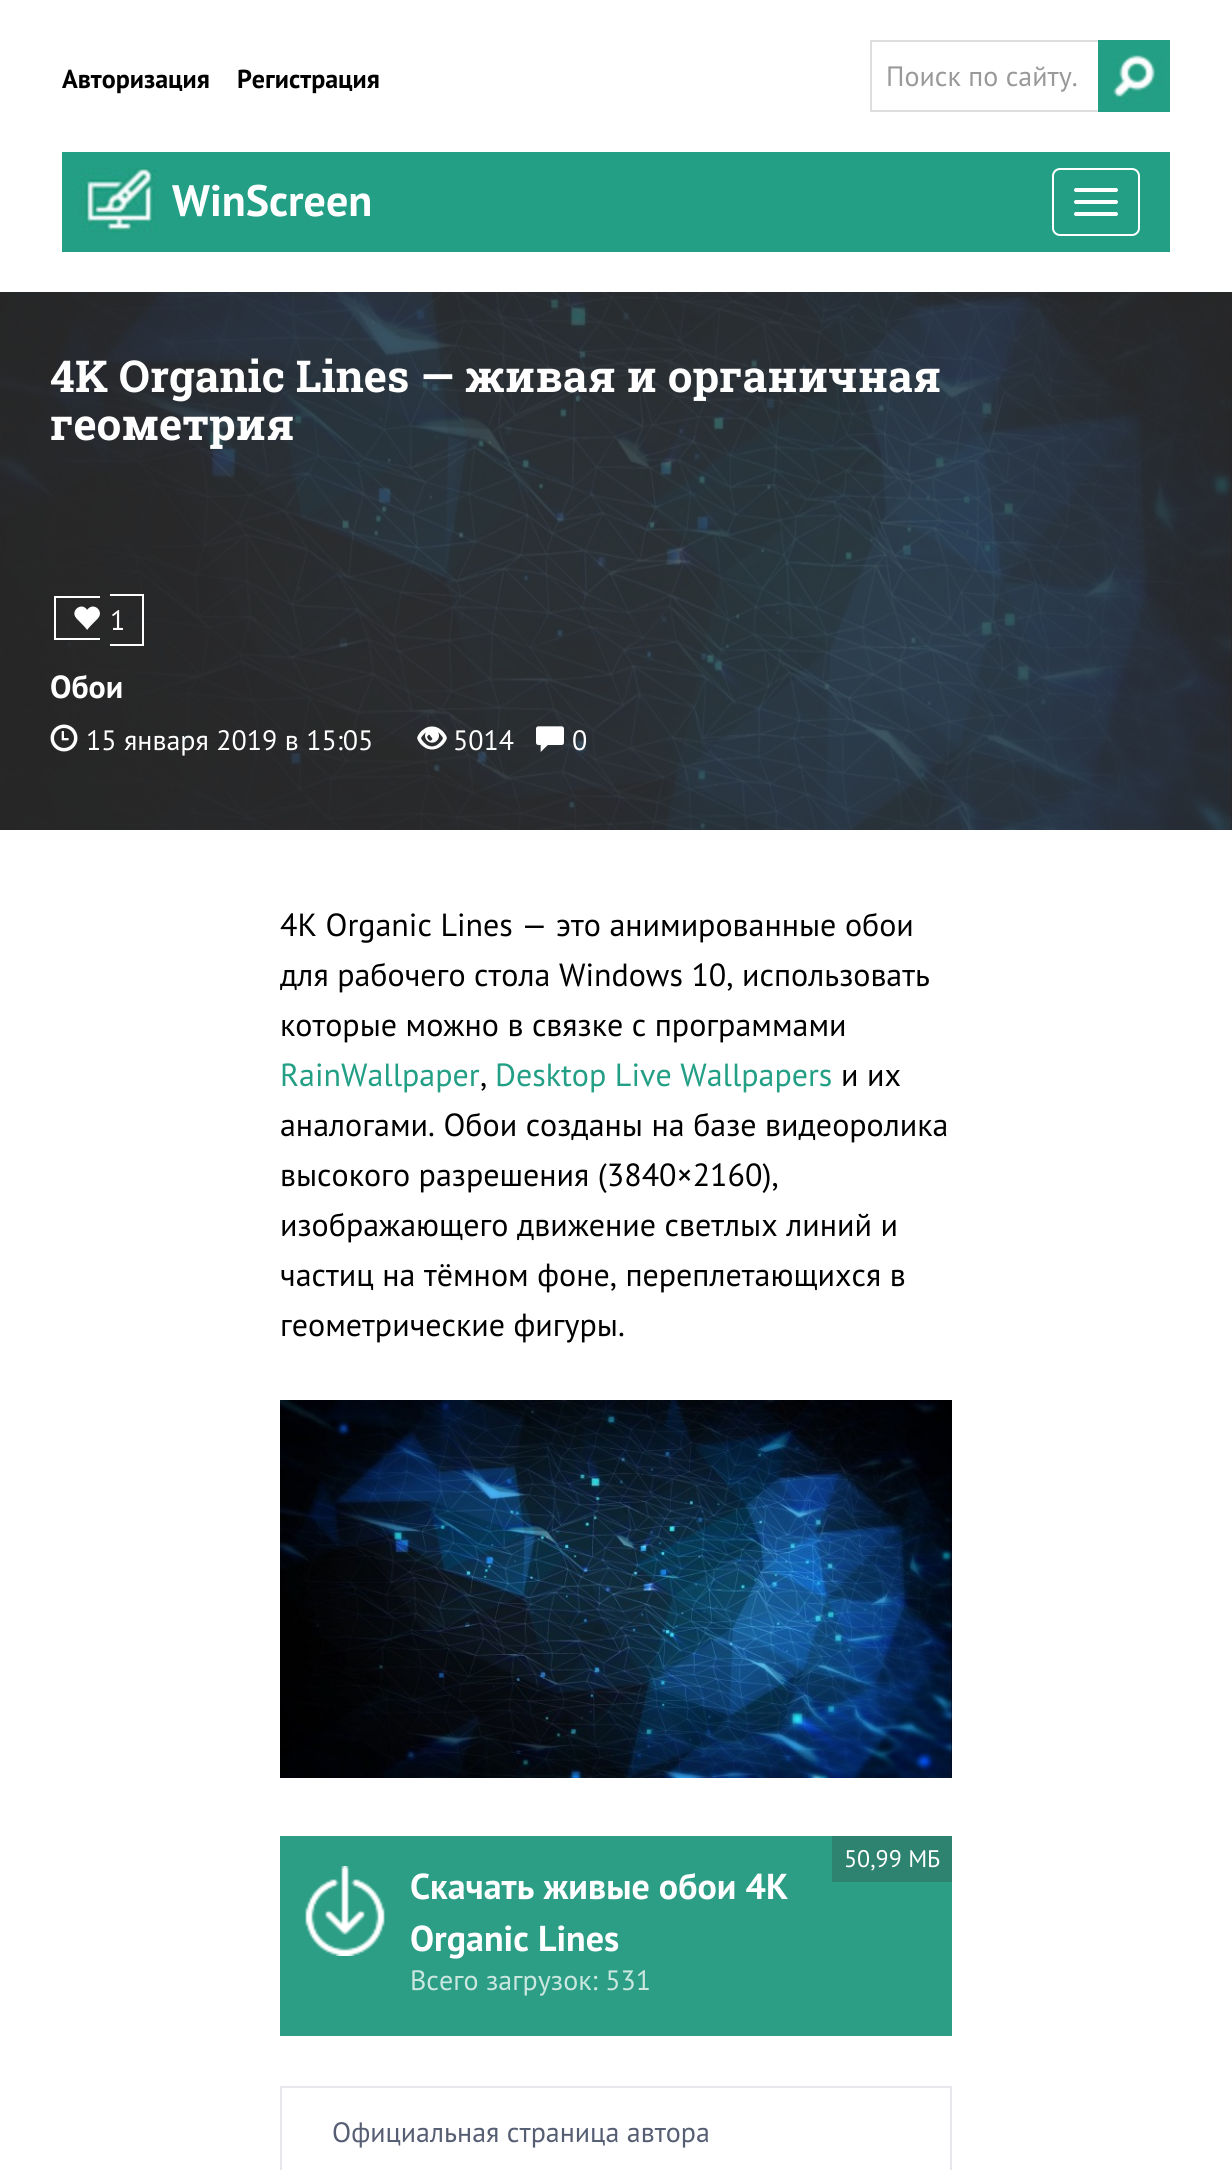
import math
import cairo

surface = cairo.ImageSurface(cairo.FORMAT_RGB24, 1232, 2170)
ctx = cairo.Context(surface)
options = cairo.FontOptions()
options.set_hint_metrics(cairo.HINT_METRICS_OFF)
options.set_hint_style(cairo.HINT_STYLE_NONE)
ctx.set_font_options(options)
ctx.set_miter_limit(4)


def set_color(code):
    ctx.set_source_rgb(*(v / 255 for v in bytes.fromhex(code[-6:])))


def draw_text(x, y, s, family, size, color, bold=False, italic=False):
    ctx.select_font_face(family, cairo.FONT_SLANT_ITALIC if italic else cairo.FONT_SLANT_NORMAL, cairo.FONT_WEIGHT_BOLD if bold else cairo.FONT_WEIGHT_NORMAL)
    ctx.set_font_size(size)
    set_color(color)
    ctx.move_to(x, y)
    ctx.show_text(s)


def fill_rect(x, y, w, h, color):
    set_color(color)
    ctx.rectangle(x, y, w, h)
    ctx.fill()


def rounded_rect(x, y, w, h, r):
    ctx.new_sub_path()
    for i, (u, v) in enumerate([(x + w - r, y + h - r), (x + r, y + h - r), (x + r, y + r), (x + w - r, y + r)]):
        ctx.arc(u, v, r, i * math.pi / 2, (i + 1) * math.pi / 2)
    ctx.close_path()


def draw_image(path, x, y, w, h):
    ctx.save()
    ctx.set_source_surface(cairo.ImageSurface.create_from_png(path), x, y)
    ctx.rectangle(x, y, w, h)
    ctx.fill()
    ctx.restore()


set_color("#ffffff")
ctx.paint()
draw_text(62, 88, "Авторизация", "PT Sans", 26, "#000000", bold=True)
draw_text(237, 88, "Регистрация", "PT Sans", 26, "#000000", bold=True)
ctx.rectangle(871, 41, 298, 70)
set_color("#dedede")
ctx.stroke()
draw_text(886, 86, "Поиск по сайту.", "PT Sans", 28, "#999999")
draw_image("assets/img1.png", 1098, 40, 72, 72)
fill_rect(62, 152, 1108, 100, "#239f85")
draw_image("assets/img2.png", 78, 168, 80, 65)
draw_text(172, 216, "WinScreen", "PT Sans", 44, "#ffffff", bold=True)
rounded_rect(1053, 169, 86, 66, 7)
ctx.stroke()
rounded_rect(1074, 188, 44, 4, 2)
ctx.fill()
rounded_rect(1074, 200, 44, 4, 2)
ctx.fill()
rounded_rect(1074, 212, 44, 4, 2)
ctx.fill()
draw_image("assets/img3.png", 0, 292, 1232, 538)
draw_text(50, 392, "4K Organic Lines — живая и органичная", "Roboto Slab", 44, "#ffffff", bold=True)
draw_text(50, 440, "геометрия", "Roboto Slab", 44, "#ffffff", bold=True)
fill_rect(54, 596, 46, 2, "#ffffff")
fill_rect(54, 638, 46, 2, "#ffffff")
fill_rect(54, 596, 2, 44, "#ffffff")
fill_rect(110, 594, 34, 2, "#ffffff")
fill_rect(142, 594, 2, 52, "#ffffff")
fill_rect(110, 644, 34, 2, "#ffffff")
draw_image("assets/img4.png", 74, 606, 26, 24)
draw_text(110, 630, "1", "PT Sans", 28, "#ffffff")
draw_text(50, 698, "Обои", "PT Sans", 32, "#ffffff", bold=True)
draw_image("assets/img5.png", 50, 724, 28, 28)
draw_text(86, 750, "15 января 2019 в 15:05", "PT Sans", 28, "#ffffff")
draw_image("assets/img6.png", 417, 726, 30, 24)
draw_text(453, 750, "5014", "PT Sans", 28, "#ffffff")
draw_image("assets/img7.png", 536, 726, 28, 26)
draw_text(572, 750, "0", "PT Sans", 28, "#ffffff")
draw_text(280, 936, "4K Organic Lines — это анимированные обои", "PT Sans", 32, "#000000")
draw_text(280, 986, "для рабочего стола Windows 10, использовать", "PT Sans", 32, "#000000")
draw_text(280, 1036, "которые можно в связке с программами", "PT Sans", 32, "#000000")
draw_text(280, 1086, "RainWallpaper", "PT Sans", 32, "#239f85")
draw_text(480, 1086, ",", "PT Sans", 32, "#000000")
draw_text(495, 1086, "Desktop Live Wallpapers", "PT Sans", 32, "#239f85")
draw_text(841, 1086, "и их", "PT Sans", 32, "#000000")
draw_text(280, 1136, "аналогами. Обои созданы на базе видеоролика", "PT Sans", 32, "#000000")
draw_text(280, 1186, "высокого разрешения (3840×2160),", "PT Sans", 32, "#000000")
draw_text(280, 1236, "изображающего движение светлых линий и", "PT Sans", 32, "#000000")
draw_text(280, 1286, "частиц на тёмном фоне, переплетающихся в", "PT Sans", 32, "#000000")
draw_text(280, 1336, "геометрические фигуры.", "PT Sans", 32, "#000000")
draw_image("assets/img8.png", 280, 1400, 672, 378)
fill_rect(280, 1836, 672, 200, "#2b9e85")
draw_image("assets/img9.png", 305, 1866, 80, 90)
fill_rect(832, 1836, 120, 46, "#2d8370")
draw_text(844, 1867, "50,99 МБ", "PT Sans", 24, "#ffffff")
draw_text(410, 1899, "Скачать живые обои 4K", "PT Sans", 36, "#ffffff", bold=True)
draw_text(410, 1951, "Organic Lines", "PT Sans", 36, "#ffffff", bold=True)
draw_text(410, 1990, "Всего загрузок: 531", "PT Sans", 28, "#cae7e0")
fill_rect(280, 2086, 672, 2, "#e7e8ec")
fill_rect(950, 2086, 2, 84, "#e7e8ec")
fill_rect(280, 2086, 2, 84, "#e7e8ec")
draw_text(332, 2142, "Официальная страница автора", "PT Sans", 28, "#565e73")
surface.write_to_png("output.png")
